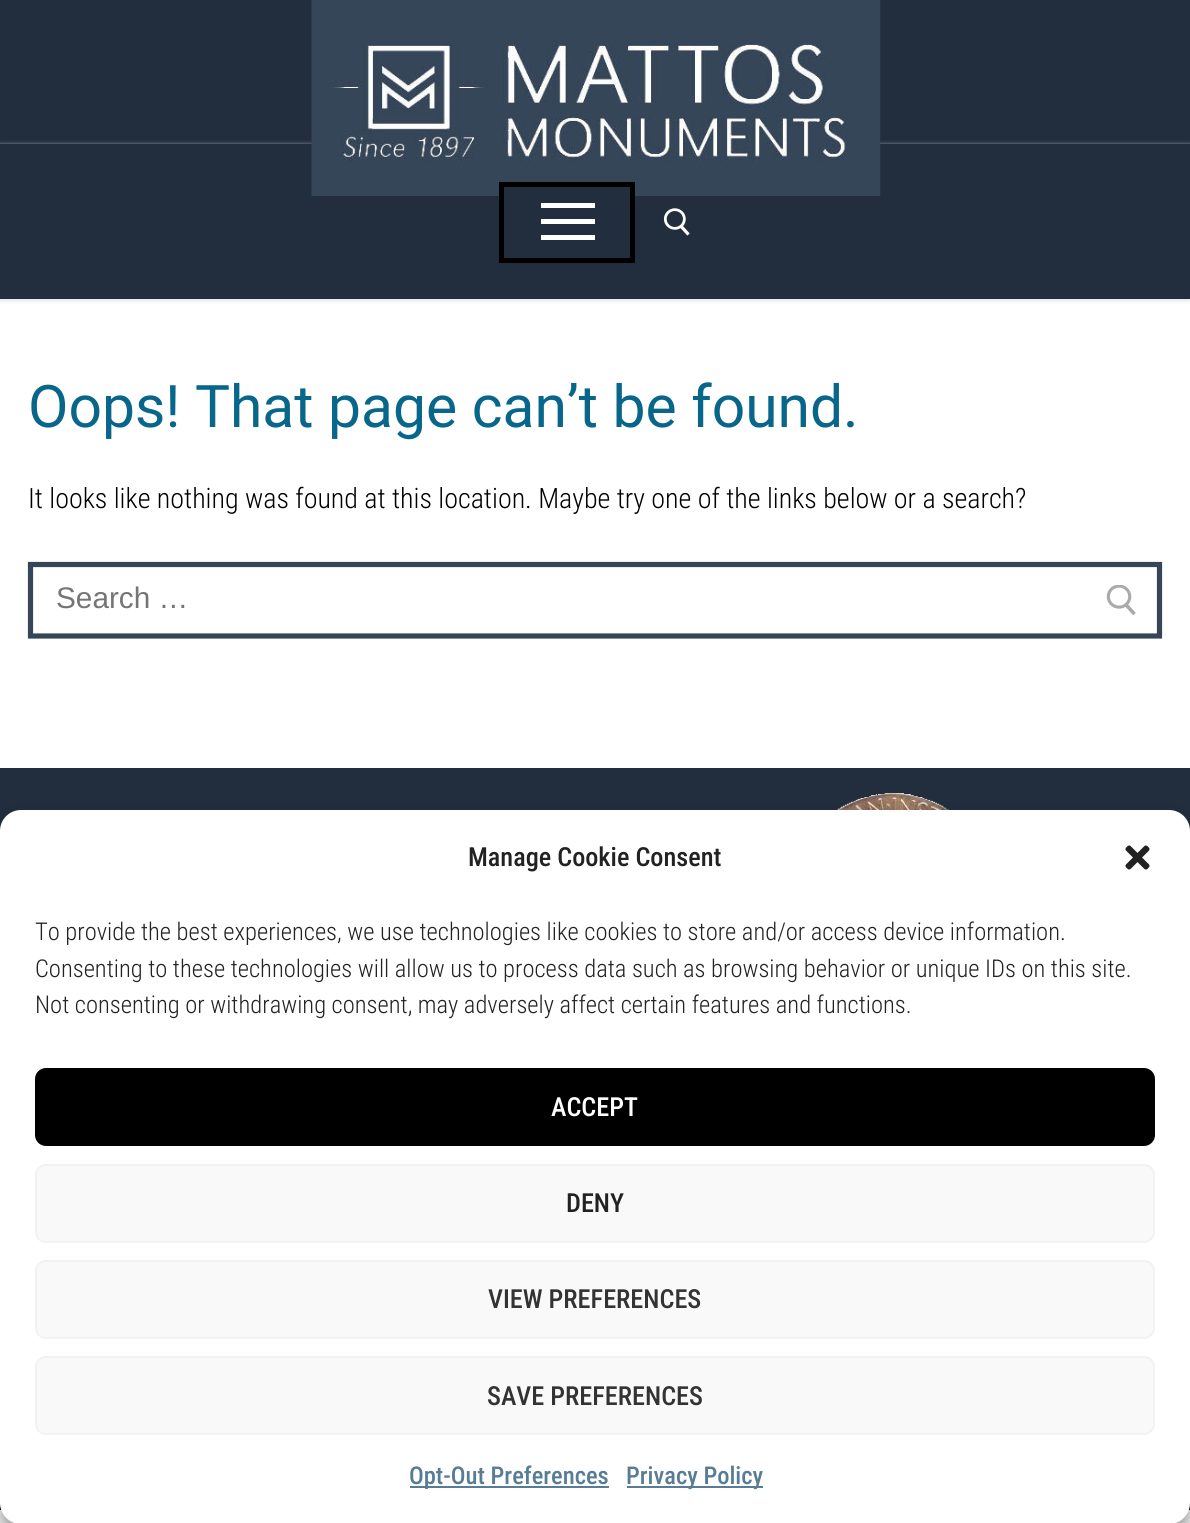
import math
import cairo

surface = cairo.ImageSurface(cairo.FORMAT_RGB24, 1190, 1523)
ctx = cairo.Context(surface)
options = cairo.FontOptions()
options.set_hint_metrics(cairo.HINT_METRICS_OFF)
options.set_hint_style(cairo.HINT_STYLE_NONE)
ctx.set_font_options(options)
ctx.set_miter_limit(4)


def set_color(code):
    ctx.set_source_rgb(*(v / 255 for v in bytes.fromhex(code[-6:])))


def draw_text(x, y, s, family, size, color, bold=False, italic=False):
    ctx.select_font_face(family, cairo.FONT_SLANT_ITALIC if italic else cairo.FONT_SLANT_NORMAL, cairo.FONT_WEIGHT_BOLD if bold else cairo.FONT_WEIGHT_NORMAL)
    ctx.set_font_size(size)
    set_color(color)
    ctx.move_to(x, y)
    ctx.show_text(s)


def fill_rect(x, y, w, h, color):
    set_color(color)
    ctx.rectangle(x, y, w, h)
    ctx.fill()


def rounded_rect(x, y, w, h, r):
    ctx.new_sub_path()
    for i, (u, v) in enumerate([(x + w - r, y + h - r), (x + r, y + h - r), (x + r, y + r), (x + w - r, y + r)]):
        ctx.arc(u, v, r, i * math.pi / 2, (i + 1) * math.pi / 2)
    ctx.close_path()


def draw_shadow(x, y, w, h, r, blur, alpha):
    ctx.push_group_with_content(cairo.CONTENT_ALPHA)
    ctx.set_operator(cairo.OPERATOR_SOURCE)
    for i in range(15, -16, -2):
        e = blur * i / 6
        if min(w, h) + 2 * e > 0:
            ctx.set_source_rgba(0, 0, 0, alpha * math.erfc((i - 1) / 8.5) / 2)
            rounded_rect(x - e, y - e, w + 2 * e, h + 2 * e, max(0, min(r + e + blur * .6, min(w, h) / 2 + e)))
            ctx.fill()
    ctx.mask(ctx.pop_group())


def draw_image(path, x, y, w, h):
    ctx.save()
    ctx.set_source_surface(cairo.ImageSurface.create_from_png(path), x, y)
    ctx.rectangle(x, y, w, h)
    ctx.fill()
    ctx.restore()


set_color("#ffffff")
ctx.paint()
fill_rect(0, 0, 1190, 144, "#222e3e")
set_color("#e1e5ea")
draw_shadow(0, 145, 1190, 156, 0, 2, 1)
fill_rect(0, 144, 1190, 155, "#222e3e")
draw_image("assets/img1.png", 311, 0, 570, 196)
fill_rect(504, 187, 126, 9, "#212e3e")
ctx.rectangle(501.5, 184.5, 131, 76)
set_color("#000000")
ctx.set_line_width(5)
ctx.stroke()
fill_rect(541, 219, 54, 5, "#ffffff")
fill_rect(541, 203, 54, 5, "#ffffff")
fill_rect(541, 235, 54, 5, "#ffffff")
draw_image("assets/img2.png", 663, 208, 27, 28)
draw_text(28, 427, "Oops! That page can’t be found.", "Roboto", 58.75, "#07668a")
draw_text(28, 508, "It looks like nothing was found at this location. Maybe try one of the links below or a search?", "Roboto Condensed Light", 28, "#000000")
ctx.new_path()
ctx.move_to(30.5, 564.5)
ctx.line_to(1159.5, 564.5)
ctx.line_to(1159.5, 636)
ctx.line_to(30.5, 636)
ctx.close_path()
set_color("#364659")
ctx.set_line_width(5.2)
ctx.stroke()
draw_text(56, 608, "Search …", "Liberation Sans", 29.75, "#757575")
draw_image("assets/img3.png", 1106, 585, 30, 31)
fill_rect(0, 768, 1190, 63, "#222e3e")
draw_image("assets/img4.png", 837, 793, 112, 17)
fill_rect(0, 1503, 1190, 7, "#000000")
set_color("#000000")
draw_shadow(0, 821, 1190, 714, 21, 5, 0.23)
draw_shadow(0, 828, 1190, 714, 21, 17.5, 0.19)
set_color("#ffffff")
rounded_rect(0, 810, 1190, 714, 21)
ctx.fill()
draw_text(468, 866, "Manage Cookie Consent", "Roboto Condensed Medium", 26.25, "#222222")
draw_image("assets/img5.png", 1125, 845, 25, 25)
draw_text(35, 940, "To provide the best experiences, we use technologies like cookies to store and/or access device information.", "Roboto Condensed Light", 24.5, "#222222")
draw_text(35, 977, "Consenting to these technologies will allow us to process data such as browsing behavior or unique IDs on this site.", "Roboto Condensed Light", 24.5, "#222222")
draw_text(35, 1013, "Not consenting or withdrawing consent, may adversely affect certain features and functions.", "Roboto Condensed Light", 24.5, "#222222")
set_color("#000000")
rounded_rect(36, 1069, 1118, 76, 10)
ctx.fill_preserve()
ctx.set_line_width(2)
ctx.stroke()
draw_text(551, 1116, "ACCEPT", "Roboto Condensed Medium", 26.25, "#ffffff")
set_color("#f9f9f9")
rounded_rect(36, 1165, 1118, 77, 10)
ctx.fill_preserve()
set_color("#f2f2f2")
ctx.stroke()
draw_text(566, 1212, "DENY", "Roboto Condensed Medium", 26.25, "#222222")
set_color("#f9f9f9")
rounded_rect(36, 1261, 1118, 77, 10)
ctx.fill_preserve()
set_color("#f2f2f2")
ctx.stroke()
draw_text(488, 1308, "VIEW PREFERENCES", "Roboto Condensed Medium", 26.25, "#333333")
set_color("#f9f9f9")
rounded_rect(36, 1357, 1118, 77, 10)
ctx.fill_preserve()
set_color("#f2f2f2")
ctx.stroke()
draw_text(487, 1405, "SAVE PREFERENCES", "Roboto Condensed Medium", 26.25, "#333333")
fill_rect(410, 1486, 199, 2, "#577d96")
draw_text(409, 1484, "Opt-Out Preferences", "Roboto Condensed Medium", 24.5, "#577d96")
fill_rect(627, 1486, 136, 2, "#577d96")
draw_text(626, 1484, "Privacy Policy", "Roboto Condensed Medium", 24.5, "#577d96")
surface.write_to_png("output.png")
